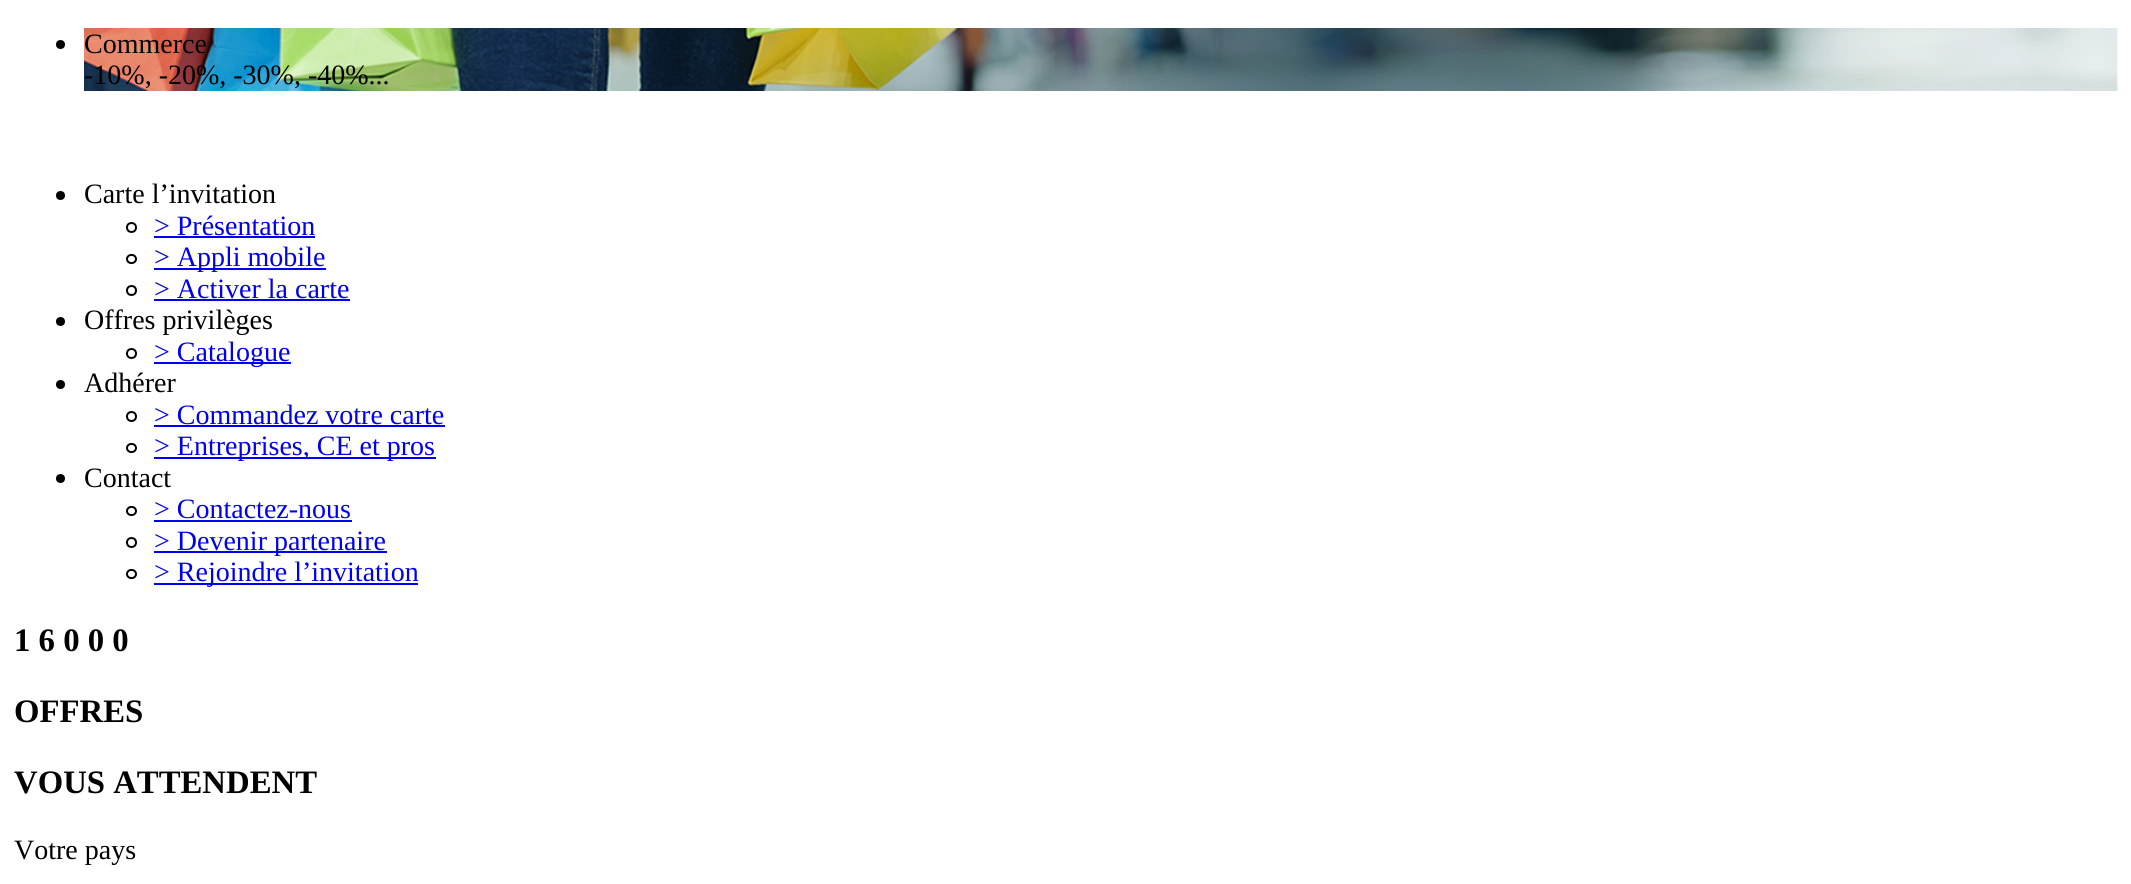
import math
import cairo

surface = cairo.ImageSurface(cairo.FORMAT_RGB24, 2131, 884)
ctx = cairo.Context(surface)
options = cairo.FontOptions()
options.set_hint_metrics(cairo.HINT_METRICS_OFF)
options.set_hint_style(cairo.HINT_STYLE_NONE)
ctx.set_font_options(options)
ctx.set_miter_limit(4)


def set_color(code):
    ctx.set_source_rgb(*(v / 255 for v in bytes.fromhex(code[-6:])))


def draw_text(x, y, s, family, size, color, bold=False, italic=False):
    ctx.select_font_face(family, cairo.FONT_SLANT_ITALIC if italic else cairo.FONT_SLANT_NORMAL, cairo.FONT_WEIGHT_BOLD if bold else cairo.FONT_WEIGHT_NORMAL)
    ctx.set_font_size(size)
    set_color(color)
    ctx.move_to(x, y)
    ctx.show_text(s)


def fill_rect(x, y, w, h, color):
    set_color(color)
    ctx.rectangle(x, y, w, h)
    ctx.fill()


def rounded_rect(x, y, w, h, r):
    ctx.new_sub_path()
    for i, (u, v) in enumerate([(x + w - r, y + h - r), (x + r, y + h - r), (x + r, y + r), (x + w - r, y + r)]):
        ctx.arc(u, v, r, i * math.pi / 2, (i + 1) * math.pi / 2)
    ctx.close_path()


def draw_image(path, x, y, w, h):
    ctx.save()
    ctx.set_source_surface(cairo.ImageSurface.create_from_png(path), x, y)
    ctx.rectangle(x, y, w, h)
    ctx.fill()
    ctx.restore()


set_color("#ffffff")
ctx.paint()
draw_image("assets/img1.png", 84, 28, 2034, 63)
set_color("#000000")
ctx.arc(60.5, 44.5, 4.5, 0, 2 * math.pi)
ctx.fill()
draw_text(84, 53, "Commerce", "Liberation Serif", 28, "#000000")
draw_text(84, 84, "-10%, -20%, -30%, -40%...", "Liberation Serif", 28, "#000000")
ctx.new_path()
ctx.arc(60.5, 195.5, 4.5, 0, 2 * math.pi)
ctx.fill()
draw_text(84, 203, "Carte l’invitation", "Liberation Serif", 28, "#000000")
ctx.new_path()
ctx.arc(131.5, 227.5, 4.5, 0, 2 * math.pi)
ctx.stroke()
draw_text(154, 235, "> Présentation", "Liberation Serif", 28, "#0000ee")
fill_rect(154, 236, 161, 2, "#0000ee")
rounded_rect(127, 255, 9, 8, 4)
set_color("#000000")
ctx.stroke()
fill_rect(154, 268, 172, 2, "#0000ee")
draw_text(154, 266, "> Appli mobile", "Liberation Serif", 28, "#0000ee")
ctx.new_path()
ctx.arc(131.5, 290.5, 4.5, 0, 2 * math.pi)
set_color("#000000")
ctx.stroke()
draw_text(154, 298, "> Activer la carte", "Liberation Serif", 28, "#0000ee")
fill_rect(154, 299, 196, 2, "#0000ee")
set_color("#000000")
ctx.new_path()
ctx.arc(60.5, 321.5, 4.5, 0, 2 * math.pi)
ctx.fill()
draw_text(84, 329, "Offres privilèges", "Liberation Serif", 28, "#000000")
ctx.new_path()
ctx.arc(131.5, 353.5, 4.5, 0, 2 * math.pi)
ctx.stroke()
fill_rect(154, 362, 137, 2, "#0000ee")
draw_text(154, 361, "> Catalogue", "Liberation Serif", 28, "#0000ee")
set_color("#000000")
ctx.new_path()
ctx.arc(60.5, 384.5, 4.5, 0, 2 * math.pi)
ctx.fill()
draw_text(84, 392, "Adhérer", "Liberation Serif", 28, "#000000")
ctx.new_path()
ctx.arc(131.5, 416.5, 4.5, 0, 2 * math.pi)
ctx.stroke()
draw_text(154, 424, "> Commandez votre carte", "Liberation Serif", 28, "#0000ee")
fill_rect(154, 425, 291, 2, "#0000ee")
rounded_rect(127, 444, 9, 8, 4)
set_color("#000000")
ctx.stroke()
fill_rect(154, 457, 282, 2, "#0000ee")
draw_text(154, 455, "> Entreprises, CE et pros", "Liberation Serif", 28, "#0000ee")
set_color("#000000")
ctx.new_path()
ctx.arc(60.5, 478.5, 4.5, 0, 2 * math.pi)
ctx.fill()
draw_text(84, 487, "Contact", "Liberation Serif", 28, "#000000")
rounded_rect(127, 507, 9, 8, 4)
ctx.stroke()
draw_text(154, 518, "> Contactez-nous", "Liberation Serif", 28, "#0000ee")
fill_rect(154, 520, 198, 2, "#0000ee")
ctx.new_path()
ctx.arc(131.5, 542.5, 4.5, 0, 2 * math.pi)
set_color("#000000")
ctx.stroke()
fill_rect(154, 551, 233, 2, "#0000ee")
draw_text(154, 550, "> Devenir partenaire", "Liberation Serif", 28, "#0000ee")
rounded_rect(127, 570, 9, 8, 4)
set_color("#000000")
ctx.stroke()
fill_rect(154, 583, 264, 2, "#0000ee")
draw_text(154, 581, "> Rejoindre l’invitation", "Liberation Serif", 28, "#0000ee")
draw_text(14, 651, "1 6 0 0 0", "Liberation Serif", 32.75, "#000000", bold=True)
draw_text(14, 722, "OFFRES", "Liberation Serif", 32.75, "#000000", bold=True)
draw_text(14, 793, "VOUS ATTENDENT", "Liberation Serif", 32.75, "#000000", bold=True)
draw_text(14, 859, "Votre pays", "Liberation Serif", 28, "#000000")
surface.write_to_png("output.png")
